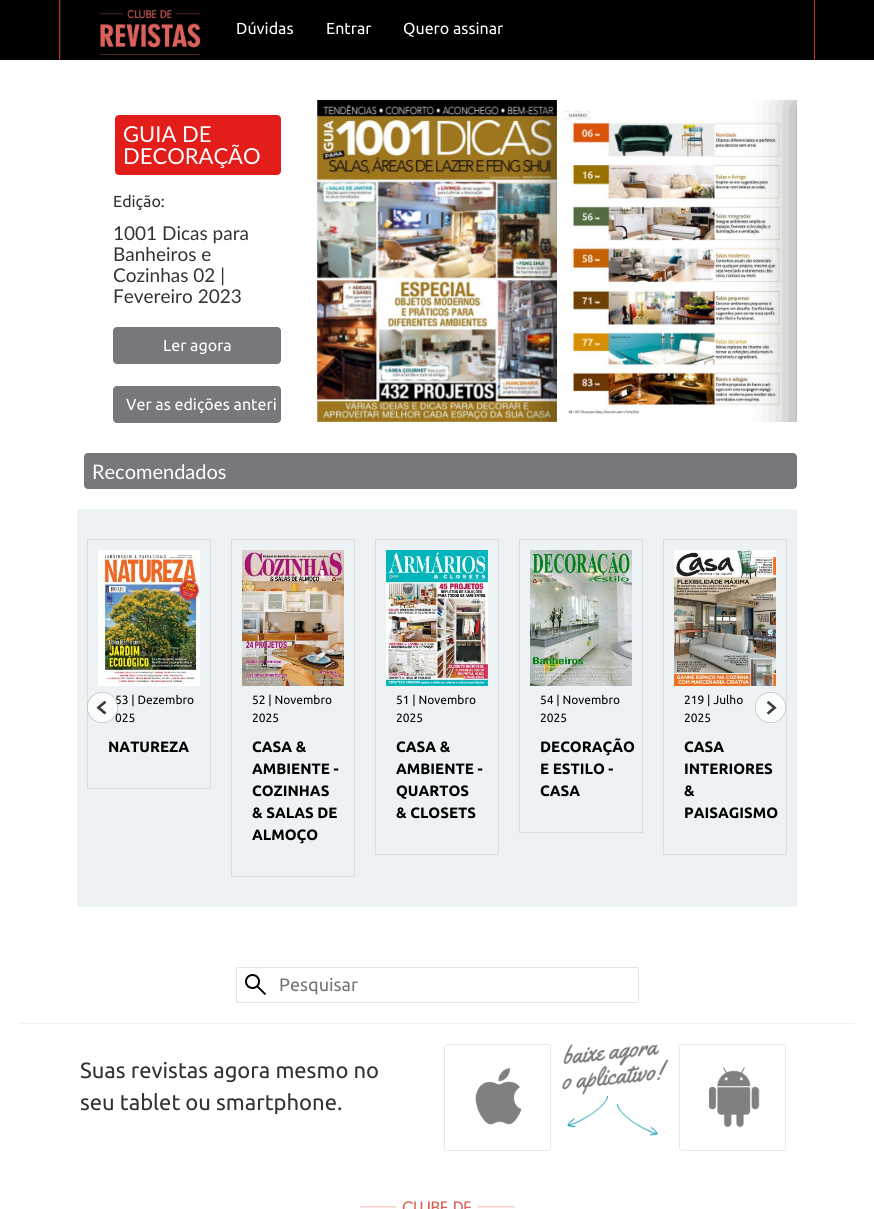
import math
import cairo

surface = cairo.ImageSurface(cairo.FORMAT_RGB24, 874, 1209)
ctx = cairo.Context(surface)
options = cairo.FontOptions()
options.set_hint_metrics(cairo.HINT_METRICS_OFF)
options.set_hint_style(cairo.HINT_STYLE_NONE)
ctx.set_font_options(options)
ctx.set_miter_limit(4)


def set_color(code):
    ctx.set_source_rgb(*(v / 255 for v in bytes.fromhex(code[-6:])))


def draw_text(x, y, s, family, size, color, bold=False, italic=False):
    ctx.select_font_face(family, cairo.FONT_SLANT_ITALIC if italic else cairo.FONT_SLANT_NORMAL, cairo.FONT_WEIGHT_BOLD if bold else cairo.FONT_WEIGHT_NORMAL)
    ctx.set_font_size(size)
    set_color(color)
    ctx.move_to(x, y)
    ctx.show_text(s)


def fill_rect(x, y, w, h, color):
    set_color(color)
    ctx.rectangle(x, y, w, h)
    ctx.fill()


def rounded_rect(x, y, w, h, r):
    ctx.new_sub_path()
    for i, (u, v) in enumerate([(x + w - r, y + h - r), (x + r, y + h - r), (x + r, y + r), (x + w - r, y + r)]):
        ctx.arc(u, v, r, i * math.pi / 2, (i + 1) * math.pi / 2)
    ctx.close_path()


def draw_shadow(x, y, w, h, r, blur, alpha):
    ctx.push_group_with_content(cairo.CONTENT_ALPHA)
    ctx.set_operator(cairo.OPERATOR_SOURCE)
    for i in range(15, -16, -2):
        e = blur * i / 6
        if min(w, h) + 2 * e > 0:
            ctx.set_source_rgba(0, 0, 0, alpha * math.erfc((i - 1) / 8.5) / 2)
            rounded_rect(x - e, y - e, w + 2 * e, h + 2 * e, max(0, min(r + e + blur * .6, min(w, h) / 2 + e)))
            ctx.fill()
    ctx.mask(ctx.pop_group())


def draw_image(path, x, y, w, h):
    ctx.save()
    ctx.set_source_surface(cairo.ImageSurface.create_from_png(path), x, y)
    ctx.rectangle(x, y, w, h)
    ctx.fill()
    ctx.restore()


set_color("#ffffff")
ctx.paint()
fill_rect(0, 0, 874, 60, "#000000")
fill_rect(60, 0, 1, 60, "#1a1a1a")
fill_rect(59, 0, 1, 60, "#ca292a")
draw_image("assets/img1.png", 100, 10, 100, 45)
draw_text(236, 34, "Dúvidas", "Ubuntu", 16, "#ffffff")
draw_text(326, 34, "Entrar", "Ubuntu", 16, "#ffffff")
draw_text(403, 34, "Quero assinar", "Ubuntu", 16, "#ffffff")
fill_rect(814, 0, 1, 60, "#ca292a")
set_color("#e31d1a")
rounded_rect(115, 115, 166, 60, 4)
ctx.fill()
draw_text(123, 142, "GUIA DE", "Lato", 22, "#ffffff")
draw_text(123, 164, "DECORAÇÃO", "Lato", 22, "#ffffff")
draw_text(113, 207, "Edição:", "Ubuntu", 16, "#333333")
draw_text(113, 240, "1001 Dicas para", "Lato", 19, "#333333")
draw_text(113, 261, "Banheiros e", "Lato", 19, "#333333")
draw_text(113, 282, "Cozinhas 02 |", "Lato", 19, "#333333")
draw_text(113, 303, "Fevereiro 2023", "Lato", 19, "#333333")
set_color("#78777c")
rounded_rect(113.5, 327.5, 167, 36, 3.5)
ctx.fill_preserve()
ctx.set_line_width(1)
ctx.stroke()
draw_text(163, 351, "Ler agora", "Ubuntu", 16, "#ffffff")
set_color("#78777c")
rounded_rect(113.5, 386.5, 167, 36, 3.5)
ctx.fill_preserve()
ctx.stroke()
draw_text(126, 410, "Ver as edições anteri", "Ubuntu", 16, "#ffffff")
draw_image("assets/img3.png", 317, 100, 240, 322)
set_color("#78777c")
rounded_rect(84, 453, 713, 36, 4)
ctx.fill()
ctx.save()
ctx.rectangle(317, 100, 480, 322)
ctx.clip()
ctx.rectangle(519, 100, 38, 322)
ctx.clip()
set_color("#000000")
draw_shadow(552, 100, 250, 332, 0, 20, 0.4)
ctx.restore()
draw_image("assets/img2.png", 557, 100, 224, 322)
ctx.save()
ctx.rectangle(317, 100, 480, 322)
ctx.clip()
set_color("#000000")
draw_shadow(792, 100, 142, 332, 0, 20, 0.4)
ctx.restore()
draw_text(92, 479, "Recomendados", "Lato", 20, "#ffffff")
fill_rect(77, 509, 720, 398, "#edf3f4")
ctx.rectangle(87.5, 539.5, 123, 249)
set_color("#dddddd")
ctx.stroke()
draw_text(115, 704, "53 | Dezembro", "Ubuntu", 12, "#000000")
draw_text(115, 722, "025", "Ubuntu", 12, "#000000")
draw_image("assets/img4.png", 87, 692, 31, 31)
ctx.rectangle(663.5, 539.5, 123, 315)
set_color("#dddddd")
ctx.stroke()
draw_image("assets/img5.png", 755, 692, 31, 31)
draw_image("assets/img6.png", 98, 550, 102, 136)
draw_text(108, 752, "NATUREZA", "Ubuntu", 15, "#000000", bold=True)
ctx.rectangle(231.5, 539.5, 123, 337)
set_color("#dddddd")
ctx.stroke()
draw_image("assets/img7.png", 242, 550, 102, 136)
draw_text(252, 704, "52 | Novembro", "Ubuntu", 12, "#000000")
draw_text(252, 722, "2025", "Ubuntu", 12, "#000000")
draw_text(252, 752, "CASA &", "Ubuntu", 15, "#000000", bold=True)
draw_text(252, 774, "AMBIENTE -", "Ubuntu", 15, "#000000", bold=True)
draw_text(252, 796, "COZINHAS", "Ubuntu", 15, "#000000", bold=True)
draw_text(252, 818, "& SALAS DE", "Ubuntu", 15, "#000000", bold=True)
draw_text(252, 840, "ALMOÇO", "Ubuntu", 15, "#000000", bold=True)
ctx.rectangle(375.5, 539.5, 123, 315)
set_color("#dddddd")
ctx.stroke()
draw_image("assets/img8.png", 386, 550, 102, 136)
draw_text(396, 704, "51 | Novembro", "Ubuntu", 12, "#000000")
draw_text(396, 722, "2025", "Ubuntu", 12, "#000000")
draw_text(396, 752, "CASA &", "Ubuntu", 15, "#000000", bold=True)
draw_text(396, 774, "AMBIENTE -", "Ubuntu", 15, "#000000", bold=True)
draw_text(396, 796, "QUARTOS", "Ubuntu", 15, "#000000", bold=True)
draw_text(396, 818, "& CLOSETS", "Ubuntu", 15, "#000000", bold=True)
ctx.rectangle(519.5, 539.5, 123, 293)
set_color("#dddddd")
ctx.stroke()
draw_image("assets/img9.png", 530, 550, 102, 136)
draw_text(540, 704, "54 | Novembro", "Ubuntu", 12, "#000000")
draw_text(540, 722, "2025", "Ubuntu", 12, "#000000")
draw_text(540, 752, "DECORAÇÃO", "Ubuntu", 15, "#000000", bold=True)
draw_text(540, 774, "E ESTILO -", "Ubuntu", 15, "#000000", bold=True)
draw_text(540, 796, "CASA", "Ubuntu", 15, "#000000", bold=True)
draw_image("assets/img10.png", 674, 550, 102, 136)
draw_text(684, 704, "219 | Julho", "Ubuntu", 12, "#000000")
draw_text(684, 722, "2025", "Ubuntu", 12, "#000000")
draw_text(684, 752, "CASA", "Ubuntu", 15, "#000000", bold=True)
draw_text(684, 774, "INTERIORES", "Ubuntu", 15, "#000000", bold=True)
draw_text(684, 796, "&", "Ubuntu", 15, "#000000", bold=True)
draw_text(684, 818, "PAISAGISMO", "Ubuntu", 15, "#000000", bold=True)
fill_rect(20, 1023, 834, 1, "#f2f2f2")
draw_image("assets/img11.png", 245, 974, 21, 21)
rounded_rect(236.5, 967.5, 402, 35, 1.5)
set_color("#e3e3e3")
ctx.stroke()
draw_text(279, 991, "Pesquisar", "Ubuntu", 18, "#757575")
draw_text(80, 1078, "Suas revistas agora mesmo no", "Ubuntu", 22, "#333333")
draw_text(80, 1110, "seu tablet ou smartphone.", "Ubuntu", 22, "#333333")
draw_image("assets/img12.png", 444, 1044, 107, 107)
draw_image("assets/img13.png", 562, 1044, 107, 92)
draw_image("assets/img14.png", 679, 1044, 107, 107)
draw_image("assets/img15.png", 360, 1201, 155, 8)
surface.write_to_png("output.png")
